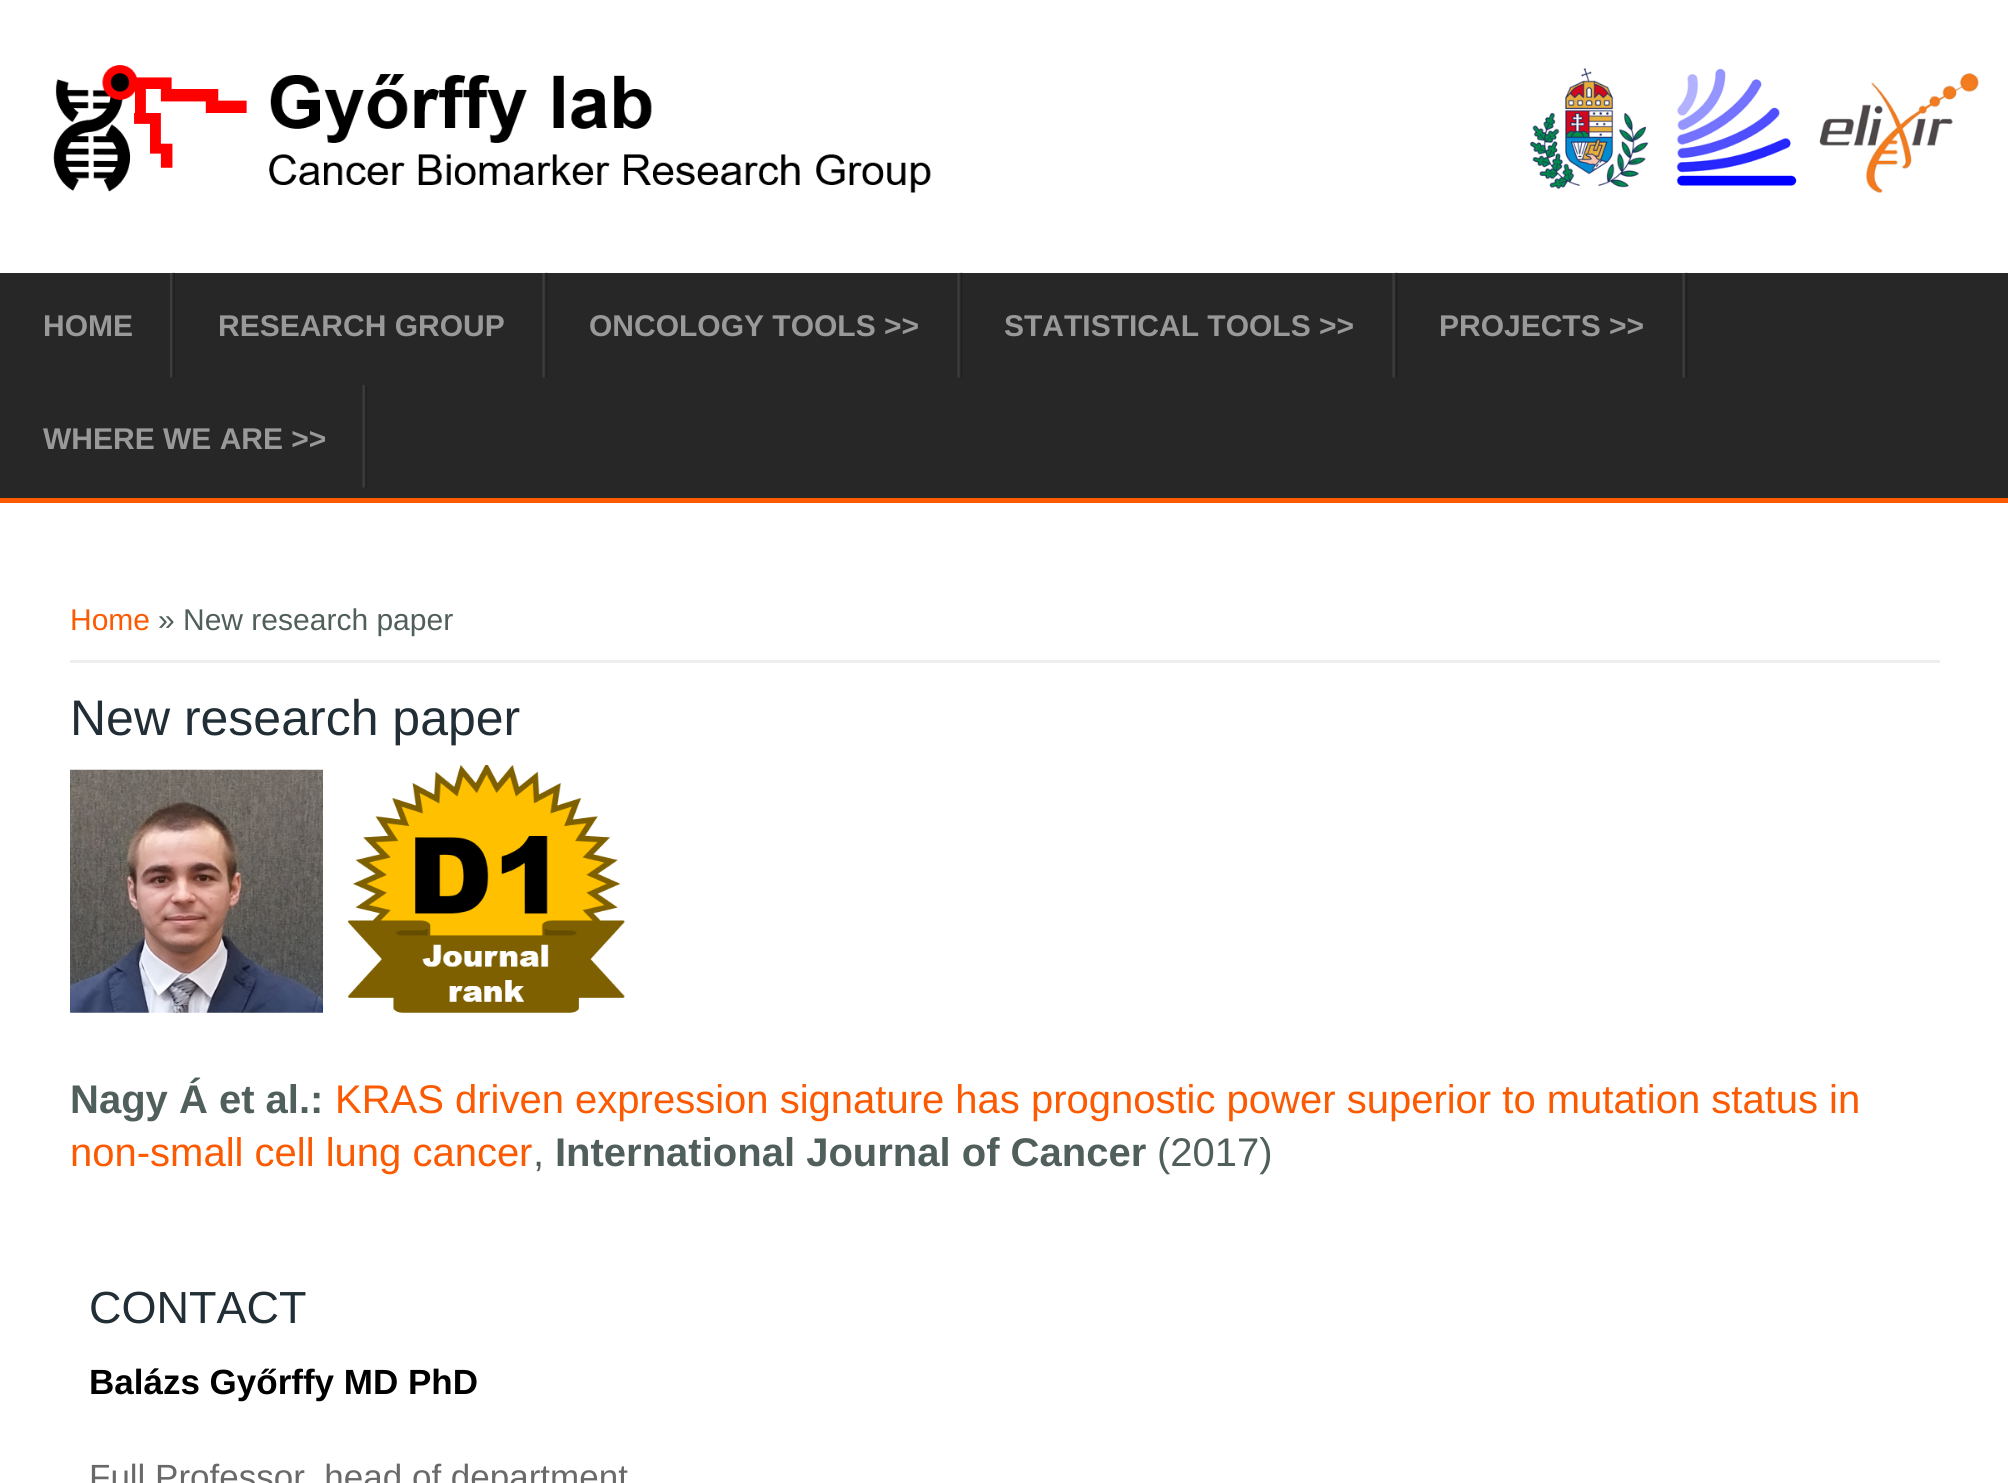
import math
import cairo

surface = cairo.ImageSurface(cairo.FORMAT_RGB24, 2008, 1483)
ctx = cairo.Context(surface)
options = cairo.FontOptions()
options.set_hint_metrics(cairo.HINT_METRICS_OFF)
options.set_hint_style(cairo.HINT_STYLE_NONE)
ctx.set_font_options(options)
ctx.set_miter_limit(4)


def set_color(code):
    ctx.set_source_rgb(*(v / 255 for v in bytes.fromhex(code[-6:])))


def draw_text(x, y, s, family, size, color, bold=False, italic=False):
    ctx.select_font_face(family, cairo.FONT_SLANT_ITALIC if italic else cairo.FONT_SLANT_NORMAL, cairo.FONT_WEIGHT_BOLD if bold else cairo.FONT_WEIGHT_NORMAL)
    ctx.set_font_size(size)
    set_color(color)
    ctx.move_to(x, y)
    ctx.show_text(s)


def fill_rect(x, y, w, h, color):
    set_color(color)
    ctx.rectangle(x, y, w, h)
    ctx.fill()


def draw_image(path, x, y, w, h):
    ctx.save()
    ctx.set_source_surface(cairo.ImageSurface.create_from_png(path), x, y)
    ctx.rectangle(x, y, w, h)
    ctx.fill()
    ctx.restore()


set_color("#ffffff")
ctx.paint()
draw_image("assets/img1.png", 53, 65, 1926, 128)
fill_rect(0, 273, 2008, 225, "#272727")
fill_rect(0, 498, 2008, 5, "#fb5a02")
draw_image("assets/img2.png", 170, 272, 5, 106)
draw_text(43, 336, "HOME", "Liberation Sans", 30, "#999999", bold=True)
draw_image("assets/img3.png", 542, 272, 6, 106)
draw_text(218, 336, "RESEARCH GROUP", "Liberation Sans", 30, "#999999", bold=True)
draw_image("assets/img3.png", 957, 272, 6, 106)
draw_text(589, 336, "ONCOLOGY TOOLS >>", "Liberation Sans", 30, "#999999", bold=True)
draw_image("assets/img3.png", 1392, 272, 6, 106)
draw_text(1004, 336, "STATISTICAL TOOLS >>", "Liberation Sans", 30, "#999999", bold=True)
draw_image("assets/img3.png", 1682, 272, 6, 106)
draw_text(1439, 336, "PROJECTS >>", "Liberation Sans", 30, "#999999", bold=True)
draw_image("assets/img4.png", 362, 385, 5, 103)
draw_text(43, 449, "WHERE WE ARE >>", "Liberation Sans", 30, "#999999", bold=True)
fill_rect(70, 660, 1870, 3, "#eeeeee")
draw_text(70, 630, "Home", "Liberation Sans", 30, "#fb5a02")
draw_text(158, 630, "» New research paper", "Liberation Sans", 30, "#515f5c")
draw_text(70, 735, "New research paper", "Liberation Sans", 50, "#222e36")
draw_image("assets/img5.png", 70, 765, 555, 248)
draw_text(70, 1113, "Nagy Á et al.:", "Liberation Sans", 40, "#515f5c", bold=True)
draw_text(335, 1113, "KRAS driven expression signature has prognostic power superior to mutation status in", "Liberation Sans", 40, "#fb5a02")
draw_text(70, 1166, "non-small cell lung cancer", "Liberation Sans", 40, "#fb5a02")
draw_text(533, 1166, ",", "Liberation Sans", 40, "#515f5c")
draw_text(555, 1166, "International Journal of Cancer", "Liberation Sans", 40, "#515f5c", bold=True)
draw_text(1157, 1166, "(2017)", "Liberation Sans", 40, "#515f5c")
draw_text(89, 1323, "CONTACT", "Liberation Sans", 45, "#222e36")
draw_text(89, 1394, "Balázs Győrffy MD PhD", "Liberation Sans", 35, "#000000", bold=True)
draw_text(89, 1489, "Full Professor, head of department", "Liberation Sans", 35, "#696969")
surface.write_to_png("output.png")
